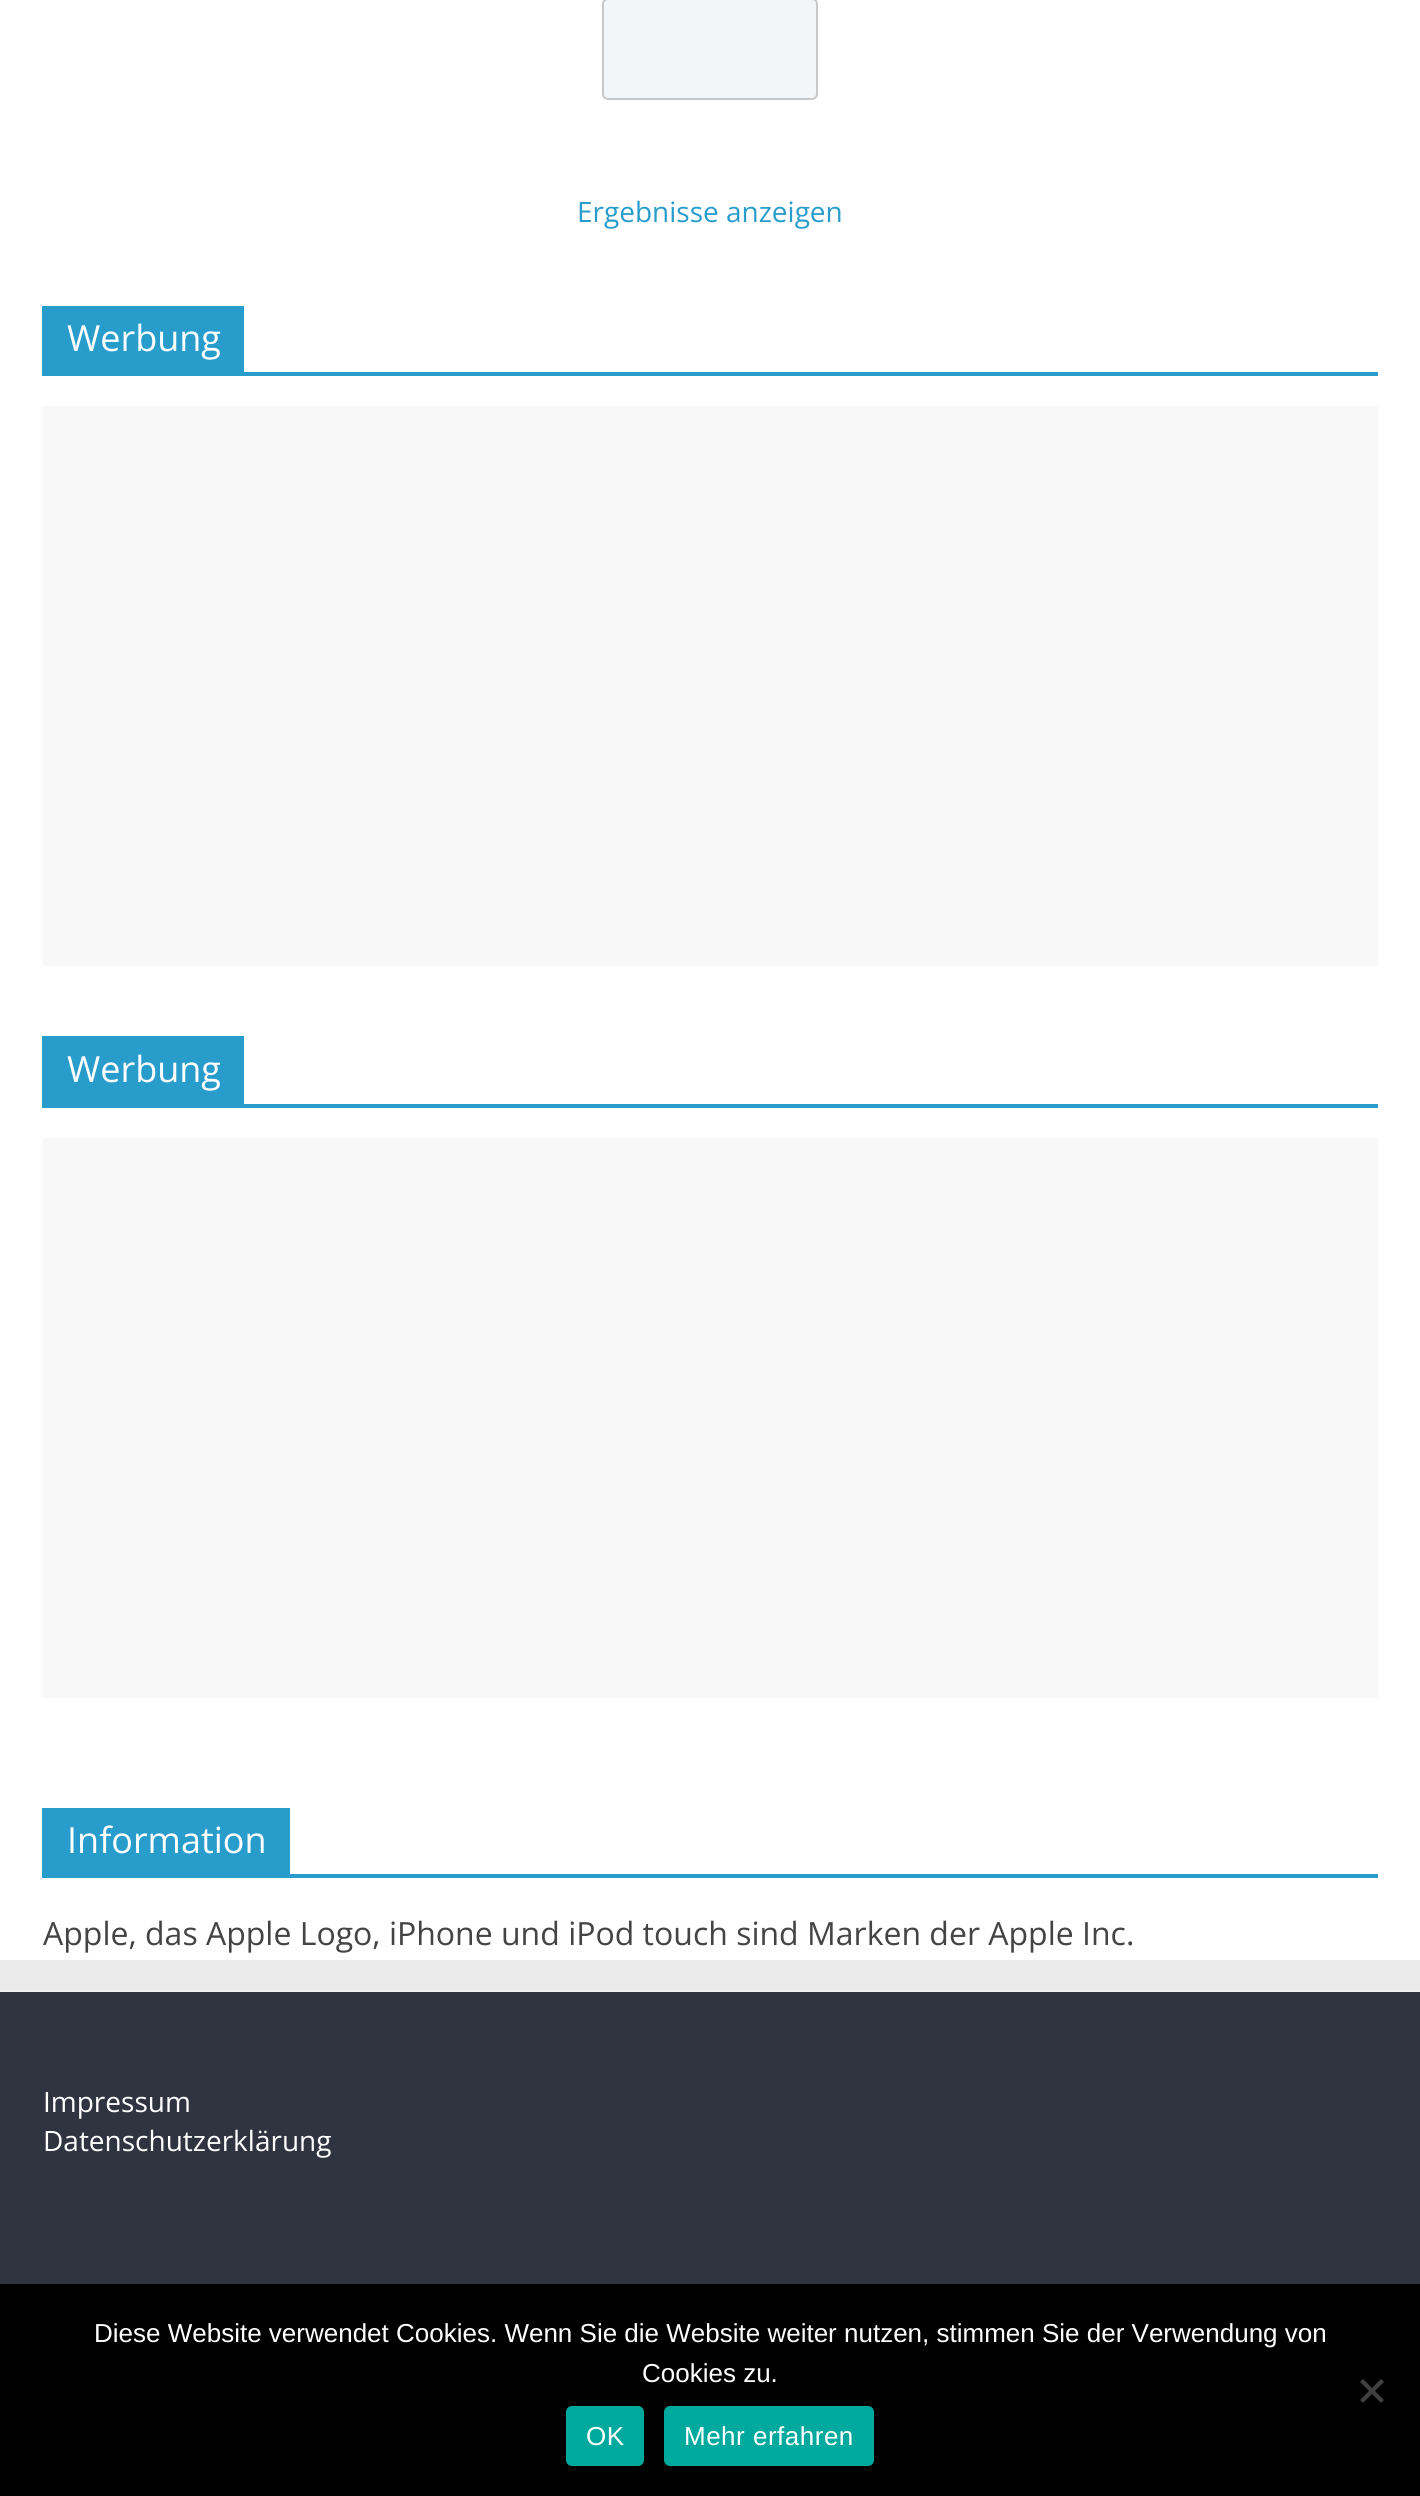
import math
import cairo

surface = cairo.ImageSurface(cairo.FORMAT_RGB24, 1420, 2496)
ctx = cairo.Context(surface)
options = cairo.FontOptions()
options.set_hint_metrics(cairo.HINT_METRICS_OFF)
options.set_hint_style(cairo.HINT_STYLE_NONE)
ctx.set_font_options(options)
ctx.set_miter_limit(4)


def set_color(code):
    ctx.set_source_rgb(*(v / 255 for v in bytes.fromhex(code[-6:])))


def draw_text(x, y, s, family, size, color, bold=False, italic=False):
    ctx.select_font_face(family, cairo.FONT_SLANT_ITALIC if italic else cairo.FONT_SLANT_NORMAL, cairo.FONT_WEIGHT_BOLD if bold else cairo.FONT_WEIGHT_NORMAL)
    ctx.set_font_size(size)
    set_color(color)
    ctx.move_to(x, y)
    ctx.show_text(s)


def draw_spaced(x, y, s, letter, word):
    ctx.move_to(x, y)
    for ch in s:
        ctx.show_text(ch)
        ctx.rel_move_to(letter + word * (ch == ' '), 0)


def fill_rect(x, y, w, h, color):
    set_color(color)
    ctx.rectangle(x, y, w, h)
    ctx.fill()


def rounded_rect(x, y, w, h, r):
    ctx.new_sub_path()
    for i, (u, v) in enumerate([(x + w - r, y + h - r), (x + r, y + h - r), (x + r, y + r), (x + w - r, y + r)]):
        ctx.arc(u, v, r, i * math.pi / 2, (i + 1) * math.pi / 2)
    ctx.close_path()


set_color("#eaeaea")
ctx.paint()
fill_rect(0, 0, 1420, 1960, "#ffffff")
set_color("#f3f6f8")
rounded_rect(603, -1, 214, 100, 5)
ctx.fill_preserve()
set_color("#c8c8c8")
ctx.stroke()
draw_text(577, 222, "Ergebnisse anzeigen", "Open Sans", 28, "#289dcc")
fill_rect(42, 372, 1336, 4, "#289dcc")
fill_rect(42, 306, 202, 66, "#289dcc")
draw_text(67, 351, "Werbung", "Open Sans", 36, "#ffffff")
fill_rect(42, 406, 1336, 560, "#f8f8f8")
fill_rect(42, 1104, 1336, 4, "#289dcc")
fill_rect(42, 1036, 202, 68, "#289dcc")
draw_text(67, 1082, "Werbung", "Open Sans", 36, "#ffffff")
fill_rect(42, 1138, 1336, 560, "#f8f8f8")
fill_rect(42, 1874, 1336, 4, "#289dcc")
fill_rect(42, 1808, 248, 66, "#289dcc")
draw_text(67, 1853, "Information", "Open Sans", 36, "#ffffff")
draw_text(43, 1945, "Apple, das Apple Logo, iPhone und iPod touch sind Marken der Apple Inc.", "Open Sans", 32, "#444444")
fill_rect(0, 1992, 1420, 292, "#303440")
fill_rect(0, 1990, 1420, 2, "#f2f2f2")
draw_text(43, 2112, "Impressum", "Open Sans", 28, "#ffffff")
draw_text(43, 2151, "Datenschutzerklärung", "Open Sans", 28, "#ffffff")
fill_rect(0, 2284, 1420, 212, "#000000")
draw_text(94, 2342, "Diese Website verwendet Cookies. Wenn Sie die Website weiter nutzen, stimmen Sie der Verwendung von", "Liberation Sans", 26, "#ffffff")
draw_text(642, 2382, "Cookies zu.", "Liberation Sans", 26, "#ffffff")
set_color("#404040")
ctx.new_path()
ctx.move_to(1381, 2379)
ctx.line_to(1384, 2382)
ctx.line_to(1363, 2403)
ctx.line_to(1360, 2400)
ctx.close_path()
ctx.fill()
ctx.new_path()
ctx.move_to(1360, 2382)
ctx.line_to(1363, 2379)
ctx.line_to(1384, 2400)
ctx.line_to(1381, 2403)
ctx.close_path()
ctx.fill()
set_color("#00a99d")
rounded_rect(566, 2406, 78, 60, 6)
ctx.fill()
set_color("#ffffff")
draw_spaced(586, 2445, "OK", 0.5, 0)
set_color("#00a99d")
rounded_rect(664, 2406, 210, 60, 6)
ctx.fill()
set_color("#ffffff")
draw_spaced(684, 2445, "Mehr erfahren", 0.5, 0)
surface.write_to_png("output.png")
